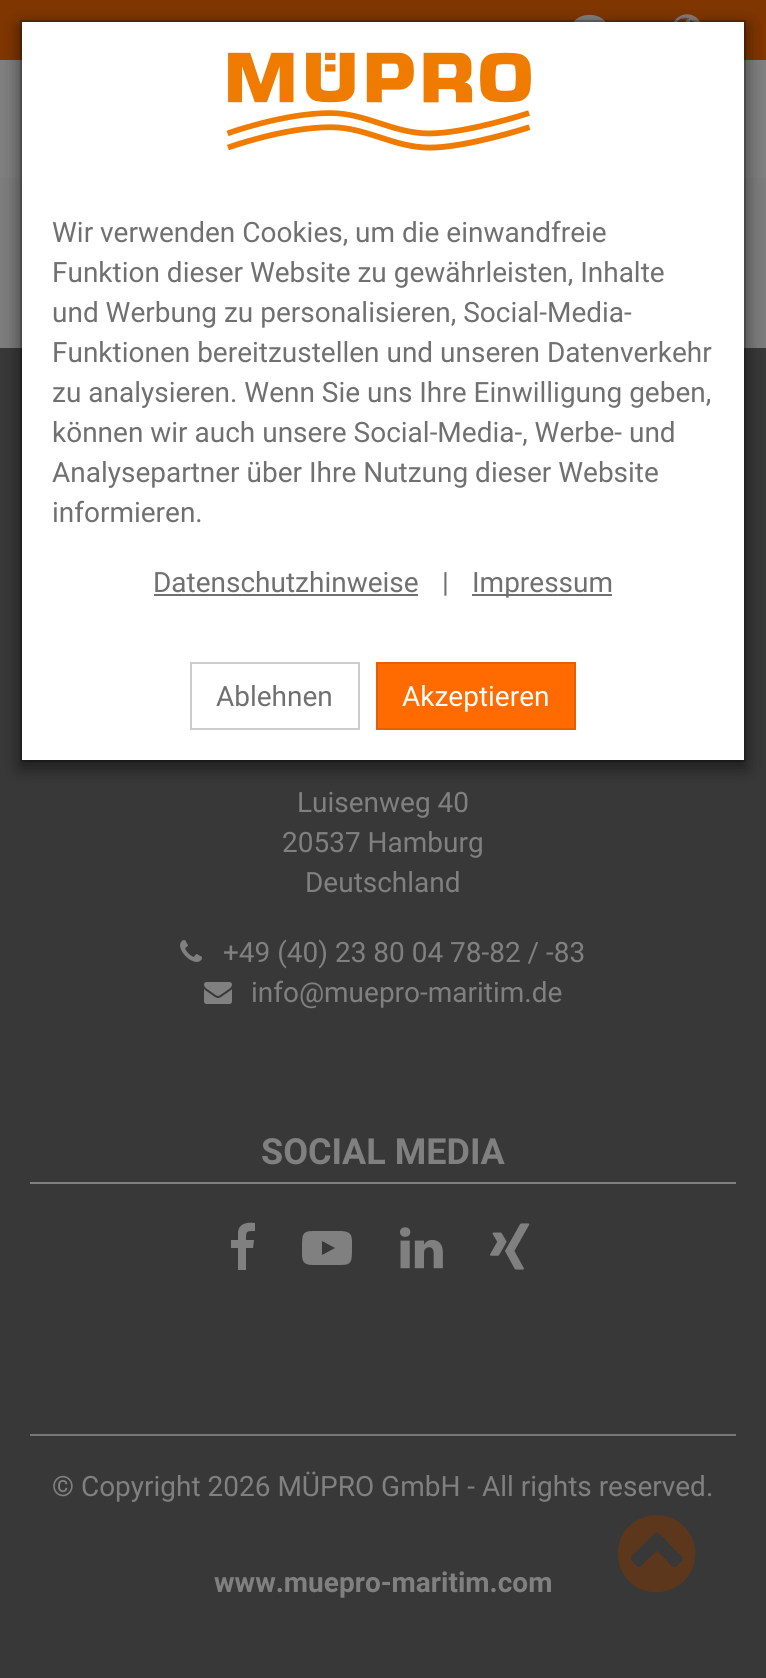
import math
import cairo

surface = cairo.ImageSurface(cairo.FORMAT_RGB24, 766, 1678)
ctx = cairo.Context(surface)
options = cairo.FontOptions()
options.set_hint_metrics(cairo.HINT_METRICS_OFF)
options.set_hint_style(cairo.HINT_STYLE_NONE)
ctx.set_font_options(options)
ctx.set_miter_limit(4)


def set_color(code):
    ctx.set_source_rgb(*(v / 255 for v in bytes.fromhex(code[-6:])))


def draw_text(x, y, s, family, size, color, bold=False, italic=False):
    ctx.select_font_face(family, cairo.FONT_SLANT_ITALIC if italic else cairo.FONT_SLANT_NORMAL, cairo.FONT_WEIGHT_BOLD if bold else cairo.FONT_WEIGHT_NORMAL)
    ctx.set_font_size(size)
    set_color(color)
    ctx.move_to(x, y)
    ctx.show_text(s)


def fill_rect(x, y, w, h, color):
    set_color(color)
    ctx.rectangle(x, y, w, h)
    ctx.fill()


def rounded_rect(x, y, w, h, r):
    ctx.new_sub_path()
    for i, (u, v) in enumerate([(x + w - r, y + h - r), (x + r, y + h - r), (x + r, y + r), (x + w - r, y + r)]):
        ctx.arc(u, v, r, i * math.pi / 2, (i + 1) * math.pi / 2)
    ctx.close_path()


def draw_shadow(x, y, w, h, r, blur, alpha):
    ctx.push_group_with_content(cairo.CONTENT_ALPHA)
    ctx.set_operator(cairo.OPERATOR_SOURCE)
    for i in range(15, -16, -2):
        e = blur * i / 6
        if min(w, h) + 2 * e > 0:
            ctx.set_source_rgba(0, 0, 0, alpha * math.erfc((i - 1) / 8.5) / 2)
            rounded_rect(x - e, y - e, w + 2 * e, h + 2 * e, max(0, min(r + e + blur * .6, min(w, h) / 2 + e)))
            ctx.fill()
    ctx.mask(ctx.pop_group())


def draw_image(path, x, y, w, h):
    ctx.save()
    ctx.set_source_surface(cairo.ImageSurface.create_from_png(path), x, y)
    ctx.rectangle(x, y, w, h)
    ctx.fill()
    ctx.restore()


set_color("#808080")
ctx.paint()
fill_rect(0, 0, 766, 60, "#803600")
draw_image("assets/img1.png", 573, 14, 33, 8)
draw_image("assets/img2.png", 674, 14, 27, 8)
fill_rect(0, 348, 766, 1330, "#383838")
fill_rect(0, 178, 766, 170, "#7d7d7d")
set_color("#000000")
draw_shadow(20, 26, 726, 742, 0, 9, 0.5)
fill_rect(22, 22, 722, 738, "#ffffff")
ctx.rectangle(21, 21, 724, 740)
ctx.set_source_rgba(0, 0, 0, 0.2)
ctx.stroke()
draw_image("assets/img3.png", 226, 52, 305, 99)
draw_text(52, 242, "Wir verwenden Cookies, um die einwandfreie", "Roboto", 28, "#707070")
draw_text(52, 282, "Funktion dieser Website zu gewährleisten, Inhalte", "Roboto", 28, "#707070")
draw_text(52, 322, "und Werbung zu personalisieren, Social-Media-", "Roboto", 28, "#707070")
draw_text(52, 362, "Funktionen bereitzustellen und unseren Datenverkehr", "Roboto", 28, "#707070")
draw_text(52, 402, "zu analysieren. Wenn Sie uns Ihre Einwilligung geben,", "Roboto", 28, "#707070")
draw_text(52, 442, "können wir auch unsere Social-Media-, Werbe- und", "Roboto", 28, "#707070")
draw_text(52, 482, "Analysepartner über Ihre Nutzung dieser Website", "Roboto", 28, "#707070")
draw_text(52, 522, "informieren.", "Roboto", 28, "#707070")
draw_text(153, 592, "Datenschutzhinweise", "Roboto", 28, "#707070")
fill_rect(154, 594, 264, 2, "#707070")
draw_text(442, 592, "|", "Roboto", 28, "#707070")
fill_rect(472, 594, 140, 2, "#707070")
draw_text(472, 592, "Impressum", "Roboto", 28, "#707070")
ctx.rectangle(191, 663, 168, 66)
set_color("#cccccc")
ctx.stroke()
draw_text(216, 706, "Ablehnen", "Roboto", 28, "#707070")
set_color("#ff6b00")
ctx.rectangle(377, 663, 198, 66)
ctx.fill_preserve()
set_color("#e66000")
ctx.stroke()
draw_text(402, 706, "Akzeptieren", "Roboto", 28, "#ffffff")
draw_text(297, 812, "Luisenweg 40", "Roboto", 28, "#808080")
draw_text(282, 852, "20537 Hamburg", "Roboto", 28, "#808080")
draw_text(305, 892, "Deutschland", "Roboto", 28, "#808080")
draw_image("assets/img4.png", 180, 940, 22, 22)
draw_text(223, 962, "+49 (40) 23 80 04 78-82 / -83", "Roboto", 28, "#808080")
draw_image("assets/img5.png", 204, 982, 28, 22)
draw_text(251, 1002, "info@muepro-maritim.de", "Roboto", 28, "#808080")
fill_rect(30, 1182, 706, 2, "#808080")
draw_text(261, 1164, "SOCIAL MEDIA", "Roboto", 36, "#808080", bold=True)
ctx.new_path()
ctx.move_to(255, 1223)
ctx.line_to(255, 1231)
ctx.curve_to(246, 1231, 246, 1231, 246, 1240)
ctx.line_to(254, 1240)
ctx.line_to(253, 1248)
ctx.line_to(246, 1248)
ctx.line_to(246, 1270)
ctx.line_to(238, 1270)
ctx.line_to(238, 1248)
ctx.line_to(231, 1248)
ctx.line_to(231, 1240)
ctx.line_to(238, 1240)
ctx.line_to(238, 1232)
ctx.curve_to(239, 1223, 248, 1222, 255, 1223)
ctx.close_path()
ctx.fill()
ctx.new_path()
ctx.move_to(322, 1255)
ctx.line_to(335, 1248)
ctx.line_to(322, 1241)
ctx.close_path()
ctx.move_to(327, 1231)
ctx.line_to(342, 1231)
ctx.curve_to(353, 1232, 352, 1237, 352, 1248)
ctx.curve_to(352, 1261, 352, 1265, 341, 1265)
ctx.line_to(313, 1265)
ctx.curve_to(301, 1265, 302, 1259, 302, 1248)
ctx.curve_to(302, 1235, 302, 1231, 313, 1231)
ctx.close_path()
ctx.fill()
draw_image("assets/img6.png", 400, 1227, 43, 42)
draw_image("assets/img7.png", 490, 1223, 40, 47)
fill_rect(30, 1434, 706, 2, "#777777")
draw_text(52, 1496, "© Copyright 2026 MÜPRO GmbH - All rights reserved.", "Roboto", 28, "#808080")
draw_text(214, 1592, "www.muepro-maritim.com", "Roboto", 28, "#808080", bold=True)
set_color("#5c371c")
ctx.new_path()
ctx.move_to(677, 1566)
ctx.curve_to(686, 1557, 684, 1559, 674, 1549)
ctx.line_to(663, 1537)
ctx.curve_to(656, 1531, 657, 1531, 651, 1537)
ctx.line_to(639, 1549)
ctx.curve_to(633, 1555, 627, 1557, 634, 1563)
ctx.curve_to(638, 1568, 639, 1569, 644, 1563)
ctx.line_to(657, 1551)
ctx.line_to(667, 1561)
ctx.curve_to(669, 1563, 673, 1570, 677, 1566)
ctx.close_path()
ctx.move_to(690, 1534)
ctx.curve_to(694, 1541, 696, 1549, 695, 1556)
ctx.curve_to(693, 1594, 642, 1606, 623, 1573)
ctx.curve_to(619, 1567, 618, 1559, 618, 1551)
ctx.curve_to(620, 1513, 671, 1502, 690, 1534)
ctx.close_path()
ctx.fill()
surface.write_to_png("output.png")
